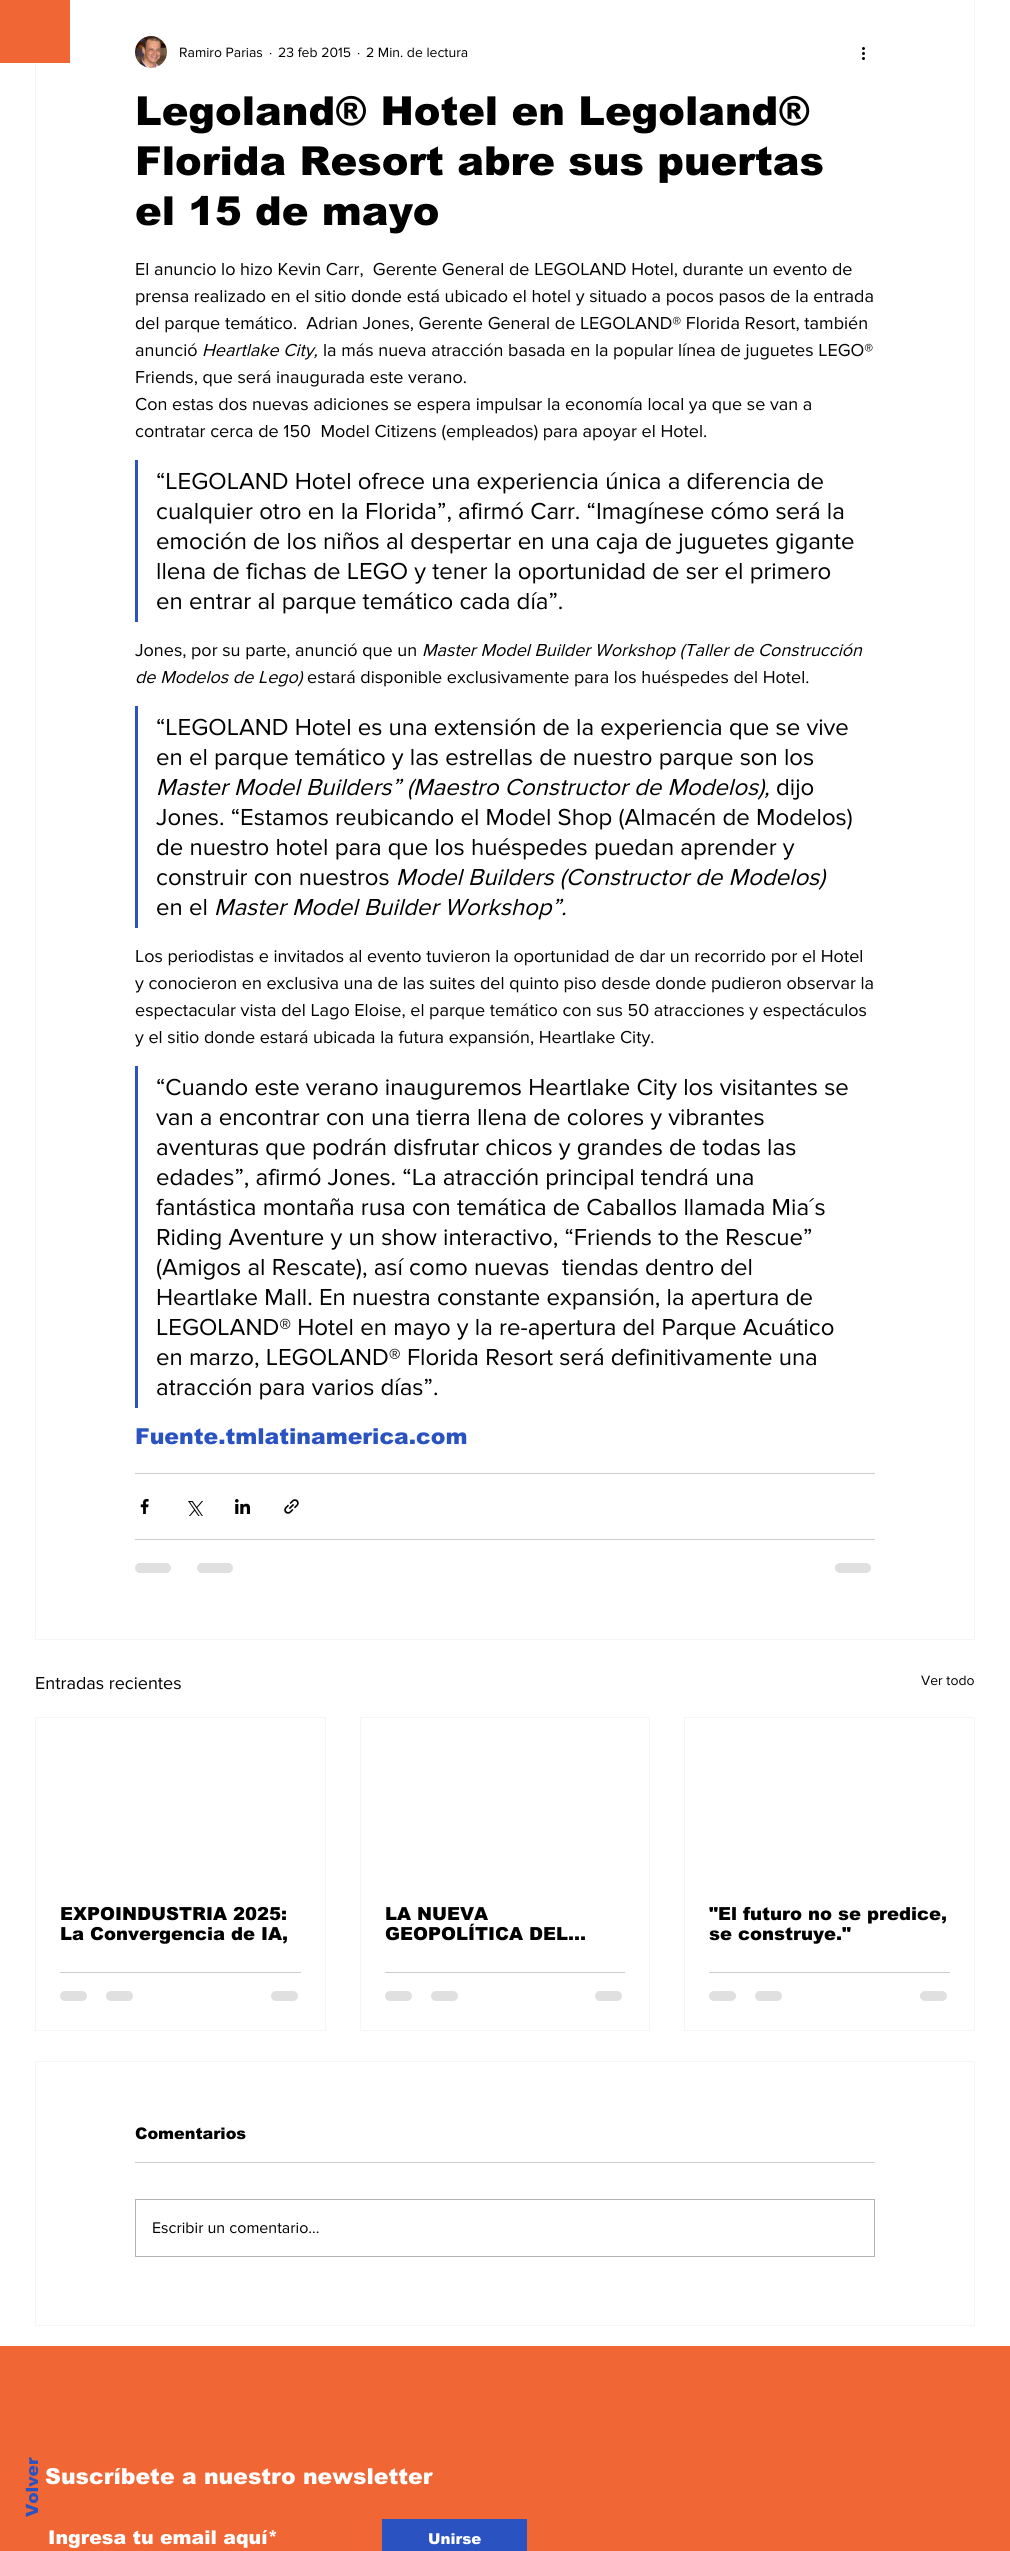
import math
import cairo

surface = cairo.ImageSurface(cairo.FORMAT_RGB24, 1010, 2551)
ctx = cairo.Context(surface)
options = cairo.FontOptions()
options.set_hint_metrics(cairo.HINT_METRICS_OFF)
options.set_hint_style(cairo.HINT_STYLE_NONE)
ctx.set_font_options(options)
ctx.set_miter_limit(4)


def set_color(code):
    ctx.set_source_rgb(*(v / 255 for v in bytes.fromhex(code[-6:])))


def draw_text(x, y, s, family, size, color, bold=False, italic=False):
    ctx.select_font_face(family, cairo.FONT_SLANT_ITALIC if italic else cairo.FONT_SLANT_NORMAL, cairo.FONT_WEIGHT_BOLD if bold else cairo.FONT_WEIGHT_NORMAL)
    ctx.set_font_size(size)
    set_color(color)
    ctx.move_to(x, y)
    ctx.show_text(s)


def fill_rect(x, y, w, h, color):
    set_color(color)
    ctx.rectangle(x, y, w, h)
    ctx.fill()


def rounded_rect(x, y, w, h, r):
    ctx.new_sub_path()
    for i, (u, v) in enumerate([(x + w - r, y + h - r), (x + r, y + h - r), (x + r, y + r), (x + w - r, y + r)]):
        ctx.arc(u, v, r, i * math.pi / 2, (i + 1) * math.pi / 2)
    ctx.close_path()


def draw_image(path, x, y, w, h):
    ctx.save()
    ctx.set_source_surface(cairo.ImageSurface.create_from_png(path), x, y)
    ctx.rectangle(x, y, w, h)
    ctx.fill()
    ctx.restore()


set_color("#ffffff")
ctx.paint()
ctx.rectangle(35.5, -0.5, 939, 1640)
set_color("#f5f5f5")
ctx.set_line_width(1)
ctx.stroke()
fill_rect(0, 0, 70, 63, "#f06635")
draw_image("assets/img1.png", 135, 36, 32, 32)
draw_text(179, 57, "Ramiro Parias", "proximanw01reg", 14, "#000000")
draw_text(269, 57, "·", "proximanw01reg", 14, "#000000")
draw_text(278, 57, "23 feb 2015", "proximanw01reg", 14, "#000000")
draw_text(357, 57, "·", "proximanw01reg", 14, "#000000")
draw_text(366, 57, "2 Min. de lectura", "proximanw01reg", 14, "#000000")
draw_image("assets/img2.png", 862, 47, 3, 13)
draw_text(135, 125, "Legoland® Hotel en Legoland®", "arial Black", 40, "#000000")
draw_text(135, 175, "Florida Resort abre sus puertas", "arial Black", 40, "#000000")
draw_text(135, 225, "el 15 de mayo", "arial Black", 40, "#000000")
draw_text(135, 275, "El anuncio lo hizo Kevin Carr,  Gerente General de LEGOLAND Hotel, durante un evento de", "proximanw01reg", 18, "#000000")
draw_text(135, 302, "prensa realizado en el sitio donde está ubicado el hotel y situado a pocos pasos de la entrada", "proximanw01reg", 18, "#000000")
draw_text(135, 329, "del parque temático.  Adrian Jones, Gerente General de LEGOLAND® Florida Resort, también", "proximanw01reg", 18, "#000000")
draw_text(135, 356, "anunció", "proximanw01reg", 18, "#000000")
draw_text(202, 356, "Heartlake City,", "proximanw01reg", 18, "#000000", italic=True)
draw_text(323, 356, "la más nueva atracción basada en la popular línea de juguetes LEGO®", "proximanw01reg", 18, "#000000")
draw_text(135, 383, "Friends, que será inaugurada este verano.", "proximanw01reg", 18, "#000000")
draw_text(135, 410, "Con estas dos nuevas adiciones se espera impulsar la economía local ya que se van a", "proximanw01reg", 18, "#000000")
draw_text(135, 437, "contratar cerca de 150  Model Citizens (empleados) para apoyar el Hotel.", "proximanw01reg", 18, "#000000")
fill_rect(135, 460, 3, 162, "#2a53c1")
draw_text(156, 489, "“LEGOLAND Hotel ofrece una experiencia única a diferencia de", "proximanw01reg", 24, "#000000")
draw_text(156, 519, "cualquier otro en la Florida”, afirmó Carr. “Imagínese cómo será la", "proximanw01reg", 24, "#000000")
draw_text(156, 549, "emoción de los niños al despertar en una caja de juguetes gigante", "proximanw01reg", 24, "#000000")
draw_text(156, 579, "llena de fichas de LEGO y tener la oportunidad de ser el primero", "proximanw01reg", 24, "#000000")
draw_text(156, 609, "en entrar al parque temático cada día”.", "proximanw01reg", 24, "#000000")
draw_text(135, 656, "Jones, por su parte, anunció que un", "proximanw01reg", 18, "#000000")
draw_text(422, 656, "Master Model Builder Workshop (Taller de Construcción", "proximanw01reg", 18, "#000000", italic=True)
draw_text(135, 683, "de Modelos de Lego)", "proximanw01reg", 18, "#000000", italic=True)
draw_text(307, 683, "estará disponible exclusivamente para los huéspedes del Hotel.", "proximanw01reg", 18, "#000000")
fill_rect(135, 706, 3, 222, "#2a53c1")
draw_text(156, 735, "“LEGOLAND Hotel es una extensión de la experiencia que se vive", "proximanw01reg", 24, "#000000")
draw_text(156, 765, "en el parque temático y las estrellas de nuestro parque son los", "proximanw01reg", 24, "#000000")
draw_text(156, 795, "Master Model Builders” (Maestro Constructor de Modelos),", "proximanw01reg", 24, "#000000", italic=True)
draw_text(776, 795, "dijo", "proximanw01reg", 24, "#000000")
draw_text(156, 825, "Jones. “Estamos reubicando el Model Shop (Almacén de Modelos)", "proximanw01reg", 24, "#000000")
draw_text(156, 855, "de nuestro hotel para que los huéspedes puedan aprender y", "proximanw01reg", 24, "#000000")
draw_text(156, 885, "construir con nuestros", "proximanw01reg", 24, "#000000")
draw_text(396, 885, "Model Builders (Constructor de Modelos)", "proximanw01reg", 24, "#000000", italic=True)
draw_text(156, 915, "en el", "proximanw01reg", 24, "#000000")
draw_text(214, 915, "Master Model Builder Workshop”.", "proximanw01reg", 24, "#000000", italic=True)
draw_text(135, 962, "Los periodistas e invitados al evento tuvieron la oportunidad de dar un recorrido por el Hotel", "proximanw01reg", 18, "#000000")
draw_text(135, 989, "y conocieron en exclusiva una de las suites del quinto piso desde donde pudieron observar la", "proximanw01reg", 18, "#000000")
draw_text(135, 1016, "espectacular vista del Lago Eloise, el parque temático con sus 50 atracciones y espectáculos", "proximanw01reg", 18, "#000000")
draw_text(135, 1043, "y el sitio donde estará ubicada la futura expansión, Heartlake City.", "proximanw01reg", 18, "#000000")
fill_rect(135, 1066, 3, 342, "#2a53c1")
draw_text(156, 1095, "“Cuando este verano inauguremos Heartlake City los visitantes se", "proximanw01reg", 24, "#000000")
draw_text(156, 1125, "van a encontrar con una tierra llena de colores y vibrantes", "proximanw01reg", 24, "#000000")
draw_text(156, 1155, "aventuras que podrán disfrutar chicos y grandes de todas las", "proximanw01reg", 24, "#000000")
draw_text(156, 1185, "edades”, afirmó Jones. “La atracción principal tendrá una", "proximanw01reg", 24, "#000000")
draw_text(156, 1215, "fantástica montaña rusa con temática de Caballos llamada Mia´s", "proximanw01reg", 24, "#000000")
draw_text(156, 1245, "Riding Aventure y un show interactivo, “Friends to the Rescue”", "proximanw01reg", 24, "#000000")
draw_text(156, 1275, "(Amigos al Rescate), así como nuevas  tiendas dentro del", "proximanw01reg", 24, "#000000")
draw_text(156, 1305, "Heartlake Mall. En nuestra constante expansión, la apertura de", "proximanw01reg", 24, "#000000")
draw_text(156, 1335, "LEGOLAND® Hotel en mayo y la re-apertura del Parque Acuático", "proximanw01reg", 24, "#000000")
draw_text(156, 1365, "en marzo, LEGOLAND® Florida Resort será definitivamente una", "proximanw01reg", 24, "#000000")
draw_text(156, 1395, "atracción para varios días”.", "proximanw01reg", 24, "#000000")
draw_text(135, 1444, "Fuente.tmlatinamerica.com", "arial Black", 22, "#2a53c1")
fill_rect(135, 1473, 740, 1, "#cccccc")
draw_image("assets/img3.png", 140, 1499, 9, 15)
draw_image("assets/img4.png", 188, 1501, 15, 15)
draw_image("assets/img5.png", 235, 1499, 15, 15)
draw_image("assets/img6.png", 284, 1499, 15, 15)
fill_rect(135, 1539, 740, 1, "#cccccc")
set_color("#e0e0e0")
rounded_rect(135, 1563, 36, 10, 5)
ctx.fill()
rounded_rect(197, 1563, 36, 10, 5)
ctx.fill()
rounded_rect(835, 1563, 36, 10, 5)
ctx.fill()
draw_text(35, 1689, "Entradas recientes", "proximanw01reg", 18, "#000000")
draw_text(921, 1685, "Ver todo", "proximanw01reg", 14, "#000000")
ctx.rectangle(35.5, 1717.5, 290, 313)
set_color("#f5f5f5")
ctx.stroke()
draw_text(60, 1920, "EXPOINDUSTRIA 2025:", "arial Black", 18, "#000000")
draw_text(60, 1940, "La Convergencia de IA,", "arial Black", 18, "#000000")
fill_rect(60, 1972, 241, 1, "#cccccc")
set_color("#e0e0e0")
rounded_rect(60, 1991, 27, 10, 5)
ctx.fill()
rounded_rect(106, 1991, 27, 10, 5)
ctx.fill()
rounded_rect(271, 1991, 27, 10, 5)
ctx.fill()
ctx.rectangle(360.5, 1717.5, 289, 313)
set_color("#f5f5f5")
ctx.stroke()
draw_text(385, 1920, "LA NUEVA", "arial Black", 18, "#000000")
draw_text(385, 1940, "GEOPOLÍTICA DEL…", "arial Black", 18, "#000000")
fill_rect(385, 1972, 240, 1, "#cccccc")
set_color("#e0e0e0")
rounded_rect(385, 1991, 27, 10, 5)
ctx.fill()
rounded_rect(431, 1991, 27, 10, 5)
ctx.fill()
rounded_rect(595, 1991, 27, 10, 5)
ctx.fill()
ctx.rectangle(684.5, 1717.5, 290, 313)
set_color("#f5f5f5")
ctx.stroke()
draw_text(709, 1920, "\"El futuro no se predice,", "arial Black", 18, "#000000")
draw_text(709, 1940, "se construye.\"", "arial Black", 18, "#000000")
fill_rect(709, 1972, 241, 1, "#cccccc")
set_color("#e0e0e0")
rounded_rect(709, 1991, 27, 10, 5)
ctx.fill()
rounded_rect(755, 1991, 27, 10, 5)
ctx.fill()
rounded_rect(920, 1991, 27, 10, 5)
ctx.fill()
ctx.rectangle(35.5, 2061.5, 939, 264)
set_color("#f5f5f5")
ctx.stroke()
draw_text(135, 2139, "Comentarios", "arial Black", 16, "#000000")
fill_rect(135, 2162, 740, 1, "#cccccc")
ctx.rectangle(135.5, 2199.5, 739, 57)
set_color("#b3b3b3")
ctx.stroke()
draw_text(152, 2233, "Escribir un comentario...", "proximanw01reg", 16, "#000000")
fill_rect(0, 2346, 1010, 205, "#f06635")
ctx.save()
ctx.translate(38, 2517)
ctx.rotate(-90 * math.pi / 180)
draw_text(0, 0, "Volver", "arial Black", 17, "#2a53c1")
ctx.restore()
draw_text(45, 2484, "Suscríbete a nuestro newsletter", "arial Black", 22, "#ffffff")
draw_text(48, 2544, "Ingresa tu email aquí*", "arial Black", 19, "#ffffff")
fill_rect(382, 2519, 145, 32, "#2a53c1")
draw_text(428, 2544, "Unirse", "arial Black", 15, "#ffffff")
surface.write_to_png("output.png")
